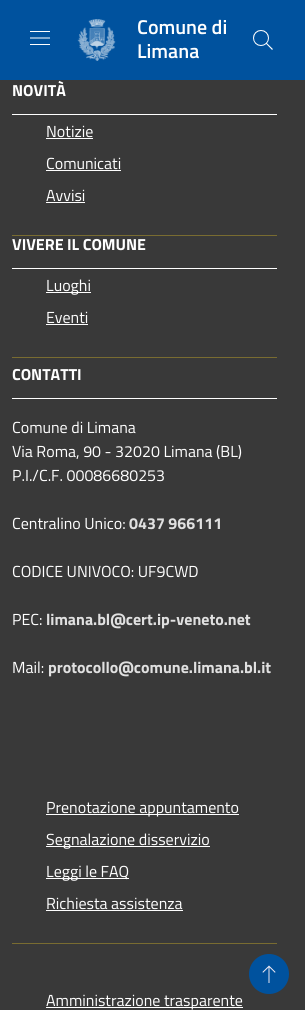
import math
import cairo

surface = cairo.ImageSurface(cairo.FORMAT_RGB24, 305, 1010)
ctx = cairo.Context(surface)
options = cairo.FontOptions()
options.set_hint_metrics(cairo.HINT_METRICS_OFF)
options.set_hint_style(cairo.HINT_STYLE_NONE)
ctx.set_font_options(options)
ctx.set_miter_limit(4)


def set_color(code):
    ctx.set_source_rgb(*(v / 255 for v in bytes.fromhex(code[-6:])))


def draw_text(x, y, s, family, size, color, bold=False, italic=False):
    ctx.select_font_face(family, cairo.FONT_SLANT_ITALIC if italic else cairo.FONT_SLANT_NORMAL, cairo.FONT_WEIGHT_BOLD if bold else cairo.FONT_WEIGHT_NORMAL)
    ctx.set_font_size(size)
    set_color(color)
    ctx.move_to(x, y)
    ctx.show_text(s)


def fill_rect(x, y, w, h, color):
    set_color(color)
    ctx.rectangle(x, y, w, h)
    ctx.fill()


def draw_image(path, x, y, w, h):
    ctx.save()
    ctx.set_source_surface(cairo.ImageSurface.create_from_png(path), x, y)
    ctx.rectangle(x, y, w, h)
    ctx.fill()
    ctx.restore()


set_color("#393939")
ctx.paint()
fill_rect(0, 0, 305, 80, "#00529e")
draw_image("assets/img1.png", 30, 31, 20, 14)
draw_image("assets/img2.png", 77, 19, 39, 42)
draw_text(137, 34, "Comune di", "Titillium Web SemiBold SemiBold", 20, "#ffffff")
draw_text(137, 58, "Limana", "Titillium Web SemiBold SemiBold", 20, "#ffffff")
draw_image("assets/img3.png", 253, 30, 20, 20)
fill_rect(12, 114, 265, 1, "#ffffff")
draw_text(12, 96, "NOVITÀ", "Titillium Web", 16, "#ffffff", bold=True)
fill_rect(12, 235, 265, 1, "#796c31")
draw_text(46, 137, "Notizie", "Titillium Web", 16, "#ffffff")
fill_rect(46, 138, 47, 1, "#ffffff")
draw_text(46, 169, "Comunicati", "Titillium Web", 16, "#ffffff")
fill_rect(46, 170, 75, 1, "#ffffff")
draw_text(46, 201, "Avvisi", "Titillium Web", 16, "#ffffff")
fill_rect(46, 202, 39, 1, "#ffffff")
fill_rect(12, 268, 265, 1, "#ffffff")
draw_text(12, 250, "VIVERE IL COMUNE", "Titillium Web", 16, "#ffffff", bold=True)
fill_rect(12, 357, 265, 1, "#796c31")
fill_rect(46, 292, 45, 1, "#ffffff")
draw_text(46, 291, "Luoghi", "Titillium Web", 16, "#ffffff")
draw_text(46, 323, "Eventi", "Titillium Web", 16, "#ffffff")
fill_rect(46, 324, 42, 1, "#ffffff")
fill_rect(12, 398, 265, 1, "#ffffff")
draw_text(12, 380, "CONTATTI", "Titillium Web", 16, "#ffffff", bold=True)
draw_text(12, 433, "Comune di Limana", "Titillium Web", 16, "#ffffff")
draw_text(12, 457, "Via Roma, 90 - 32020 Limana (BL)", "Titillium Web", 16, "#ffffff")
draw_text(12, 481, "P.I./C.F. 00086680253", "Titillium Web", 16, "#ffffff")
draw_text(12, 529, "Centralino Unico:", "Titillium Web", 16, "#ffffff")
draw_text(129, 529, "0437 966111", "Titillium Web", 16, "#e0e0e0", bold=True)
draw_text(12, 577, "CODICE UNIVOCO: UF9CWD", "Titillium Web", 16, "#ffffff")
draw_text(12, 625, "PEC:", "Titillium Web", 16, "#ffffff")
draw_text(46, 625, "limana.bl@cert.ip-veneto.net", "Titillium Web", 16, "#e0e0e0", bold=True)
draw_text(12, 673, "Mail:", "Titillium Web", 16, "#ffffff")
draw_text(48, 673, "protocollo@comune.limana.bl.it", "Titillium Web", 16, "#e0e0e0", bold=True)
fill_rect(12, 943, 265, 1, "#796c31")
fill_rect(46, 814, 193, 1, "#ffffff")
draw_text(46, 813, "Prenotazione appuntamento", "Titillium Web", 16, "#ffffff")
fill_rect(46, 846, 164, 1, "#ffffff")
draw_text(46, 845, "Segnalazione disservizio", "Titillium Web", 16, "#ffffff")
fill_rect(46, 878, 83, 1, "#ffffff")
draw_text(46, 877, "Leggi le FAQ", "Titillium Web", 16, "#ffffff")
draw_text(46, 909, "Richiesta assistenza", "Titillium Web", 16, "#ffffff")
fill_rect(46, 910, 137, 1, "#ffffff")
fill_rect(46, 1007, 197, 1, "#ffffff")
draw_text(46, 1006, "Amministrazione trasparente", "Titillium Web", 16, "#ffffff")
set_color("#00529e")
ctx.new_path()
ctx.arc(269, 974, 20, 0, 2 * math.pi)
ctx.fill()
draw_image("assets/img4.png", 262, 965, 14, 18)
surface.write_to_png("output.png")
